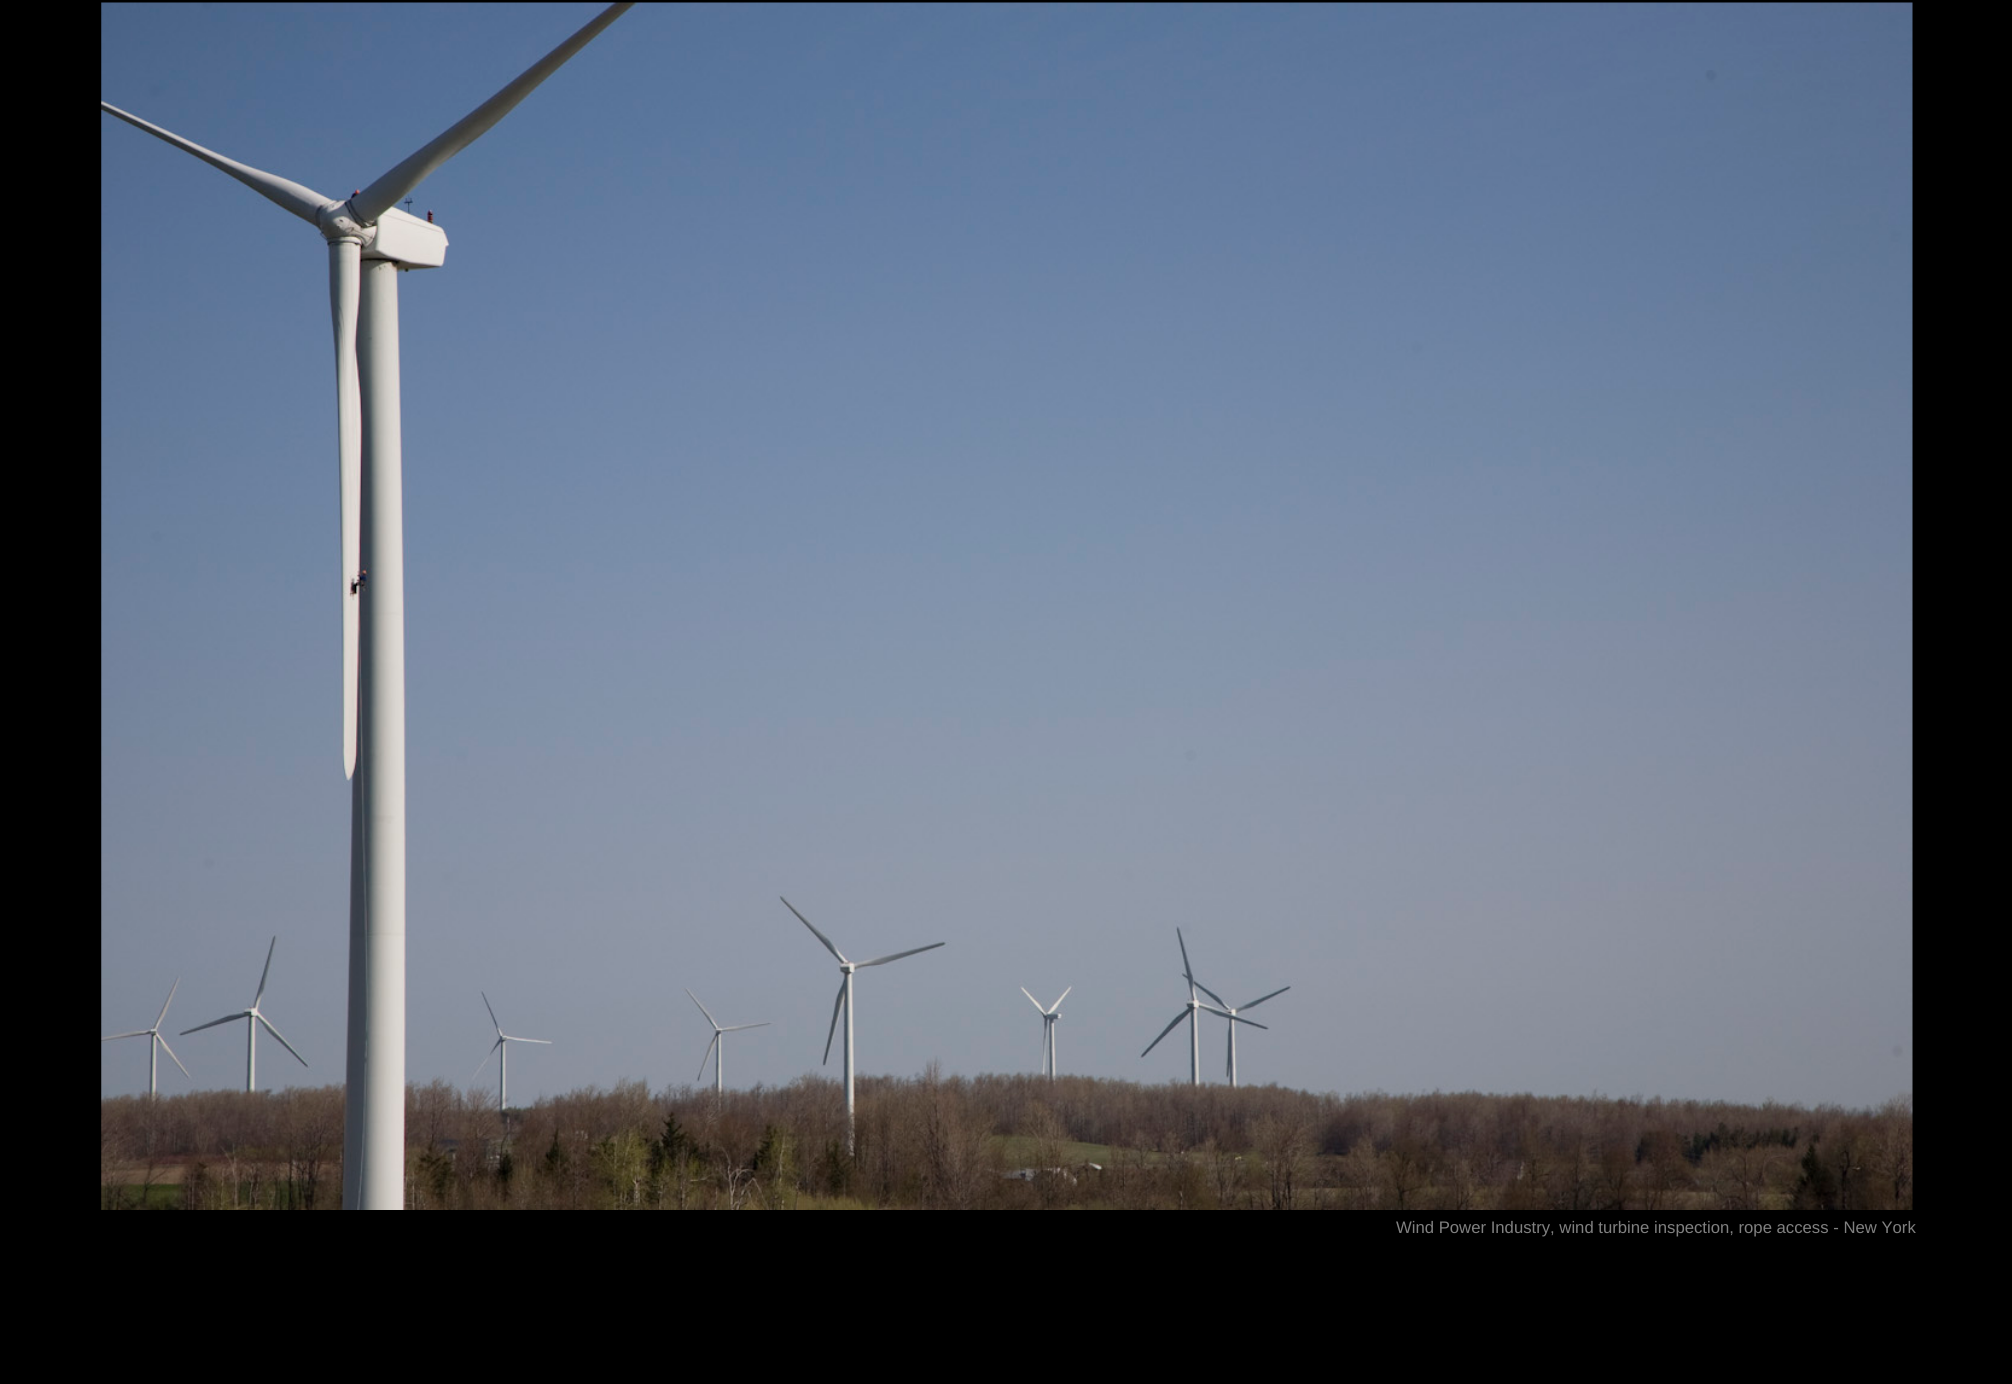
import math
import cairo

surface = cairo.ImageSurface(cairo.FORMAT_RGB24, 2012, 1384)
ctx = cairo.Context(surface)
options = cairo.FontOptions()
options.set_hint_metrics(cairo.HINT_METRICS_OFF)
options.set_hint_style(cairo.HINT_STYLE_NONE)
ctx.set_font_options(options)
ctx.set_miter_limit(4)


def set_color(code):
    ctx.set_source_rgb(*(v / 255 for v in bytes.fromhex(code[-6:])))


def draw_text(x, y, s, family, size, color, bold=False, italic=False):
    ctx.select_font_face(family, cairo.FONT_SLANT_ITALIC if italic else cairo.FONT_SLANT_NORMAL, cairo.FONT_WEIGHT_BOLD if bold else cairo.FONT_WEIGHT_NORMAL)
    ctx.set_font_size(size)
    set_color(color)
    ctx.move_to(x, y)
    ctx.show_text(s)


def draw_image(path, x, y, w, h):
    ctx.save()
    ctx.set_source_surface(cairo.ImageSurface.create_from_png(path), x, y)
    ctx.rectangle(x, y, w, h)
    ctx.fill()
    ctx.restore()


set_color("#000000")
ctx.paint()
draw_image("assets/img1.png", 101, 2, 1812, 1208)
draw_text(1396, 1233, "Wind Power Industry, wind turbine inspection, rope access - New York", "Liberation Sans", 16.7, "#808080")
surface.write_to_png("output.png")
